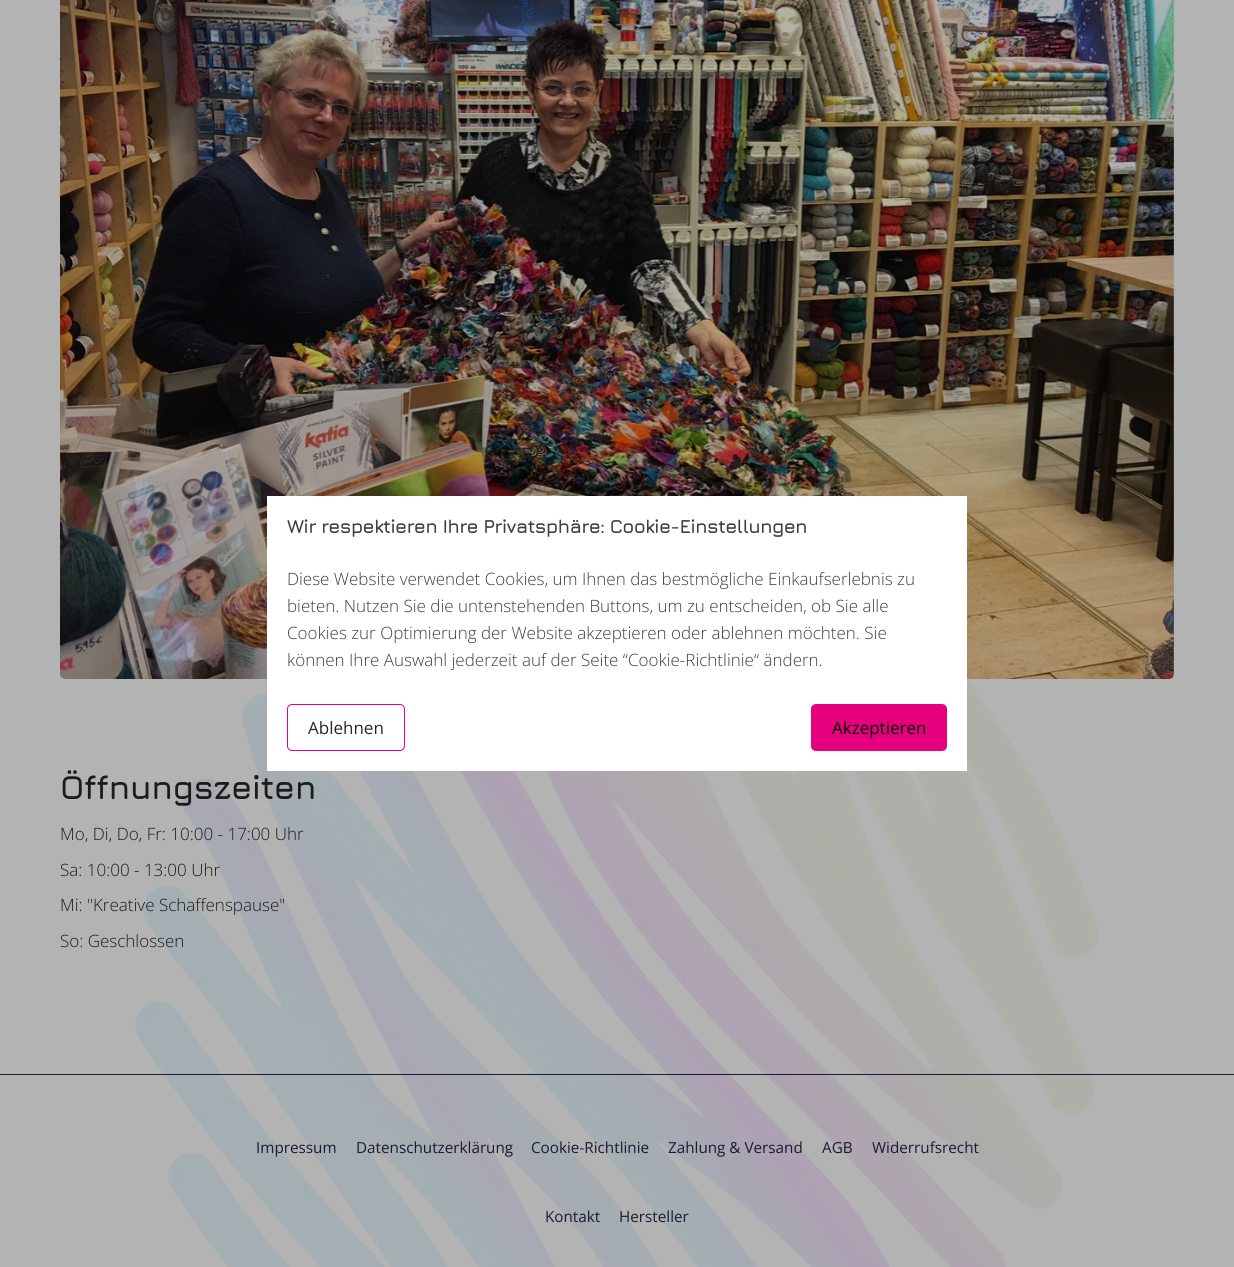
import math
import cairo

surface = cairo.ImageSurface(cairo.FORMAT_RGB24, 1234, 1267)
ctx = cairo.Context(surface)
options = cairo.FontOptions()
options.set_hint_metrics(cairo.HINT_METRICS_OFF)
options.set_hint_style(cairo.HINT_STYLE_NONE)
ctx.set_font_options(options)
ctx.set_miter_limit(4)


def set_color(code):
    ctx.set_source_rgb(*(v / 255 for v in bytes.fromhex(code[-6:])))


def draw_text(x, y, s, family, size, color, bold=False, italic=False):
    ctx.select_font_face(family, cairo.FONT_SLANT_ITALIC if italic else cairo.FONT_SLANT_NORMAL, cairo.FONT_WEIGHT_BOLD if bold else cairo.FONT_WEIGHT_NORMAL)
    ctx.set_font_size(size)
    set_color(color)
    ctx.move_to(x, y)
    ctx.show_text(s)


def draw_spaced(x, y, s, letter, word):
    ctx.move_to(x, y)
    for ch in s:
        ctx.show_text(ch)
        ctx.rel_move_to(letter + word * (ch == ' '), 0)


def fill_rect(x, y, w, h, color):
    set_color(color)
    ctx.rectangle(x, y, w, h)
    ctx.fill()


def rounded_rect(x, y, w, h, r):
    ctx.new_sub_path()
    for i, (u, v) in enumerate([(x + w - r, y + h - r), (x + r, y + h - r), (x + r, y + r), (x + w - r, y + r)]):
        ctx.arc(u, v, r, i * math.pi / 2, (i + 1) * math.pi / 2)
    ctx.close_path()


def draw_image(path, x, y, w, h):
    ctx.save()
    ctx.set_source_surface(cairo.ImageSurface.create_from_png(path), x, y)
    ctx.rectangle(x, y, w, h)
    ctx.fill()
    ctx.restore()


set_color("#b3b3b3")
ctx.paint()
draw_image("assets/img1.png", 135, 680, 964, 587)
draw_image("assets/img2.png", 60, 0, 1114, 679)
ctx.select_font_face("Jura", cairo.FONT_SLANT_NORMAL, cairo.FONT_WEIGHT_BOLD)
ctx.set_font_size(33.5)
set_color("#1c1c1c")
draw_spaced(60, 799, "Öffnungszeiten", -0.7, 0)
fill_rect(267, 496, 700, 275, "#ffffff")
ctx.set_font_size(19.05)
set_color("#3e3e3e")
draw_spaced(287, 533, "Wir respektieren Ihre Privatsphäre: Cookie-Einstellungen", -0.7, 0)
draw_text(287, 585, "Diese Website verwendet Cookies, um Ihnen das bestmögliche Einkaufserlebnis zu", "Open Sans Light", 17, "#3e3e3e")
draw_text(287, 612, "bieten. Nutzen Sie die untenstehenden Buttons, um zu entscheiden, ob Sie alle", "Open Sans Light", 17, "#3e3e3e")
draw_text(287, 639, "Cookies zur Optimierung der Website akzeptieren oder ablehnen möchten. Sie", "Open Sans Light", 17, "#3e3e3e")
draw_text(287, 666, "können Ihre Auswahl jederzeit auf der Seite “Cookie-Richtlinie“ ändern.", "Open Sans Light", 17, "#3e3e3e")
rounded_rect(287.5, 704.5, 117, 46, 4.5)
set_color("#e6007e")
ctx.set_line_width(1)
ctx.stroke()
draw_text(308, 734, "Ablehnen", "Open Sans", 17, "#282828")
set_color("#e6007e")
rounded_rect(811, 704, 136, 47, 5)
ctx.fill()
draw_text(832, 734, "Akzeptieren", "Open Sans", 17, "#000000")
draw_text(60, 840, "Mo, Di, Do, Fr: 10:00 - 17:00 Uhr", "Open Sans Light", 17, "#1c1c1c")
draw_text(60, 876, "Sa: 10:00 - 13:00 Uhr", "Open Sans Light", 17, "#1c1c1c")
draw_text(60, 911, "Mi: \"Kreative Schaffenspause\"", "Open Sans Light", 17, "#1c1c1c")
draw_text(60, 947, "So: Geschlossen", "Open Sans Light", 17, "#1c1c1c")
fill_rect(0, 1074, 1234, 1, "#1b1b35")
draw_text(256, 1153, "Impressum", "Open Sans", 15.25, "#1b1b35")
draw_text(356, 1153, "Datenschutzerklärung", "Open Sans", 15.25, "#1b1b35")
draw_text(531, 1153, "Cookie-Richtlinie", "Open Sans", 15.25, "#1b1b35")
draw_text(668, 1153, "Zahlung & Versand", "Open Sans", 15.25, "#1b1b35")
draw_text(822, 1153, "AGB", "Open Sans", 15.25, "#1b1b35")
draw_text(872, 1153, "Widerrufsrecht", "Open Sans", 15.25, "#1b1b35")
draw_text(545, 1222, "Kontakt", "Open Sans", 15.25, "#1b1b35")
draw_text(619, 1222, "Hersteller", "Open Sans", 15.25, "#1b1b35")
surface.write_to_png("output.png")
